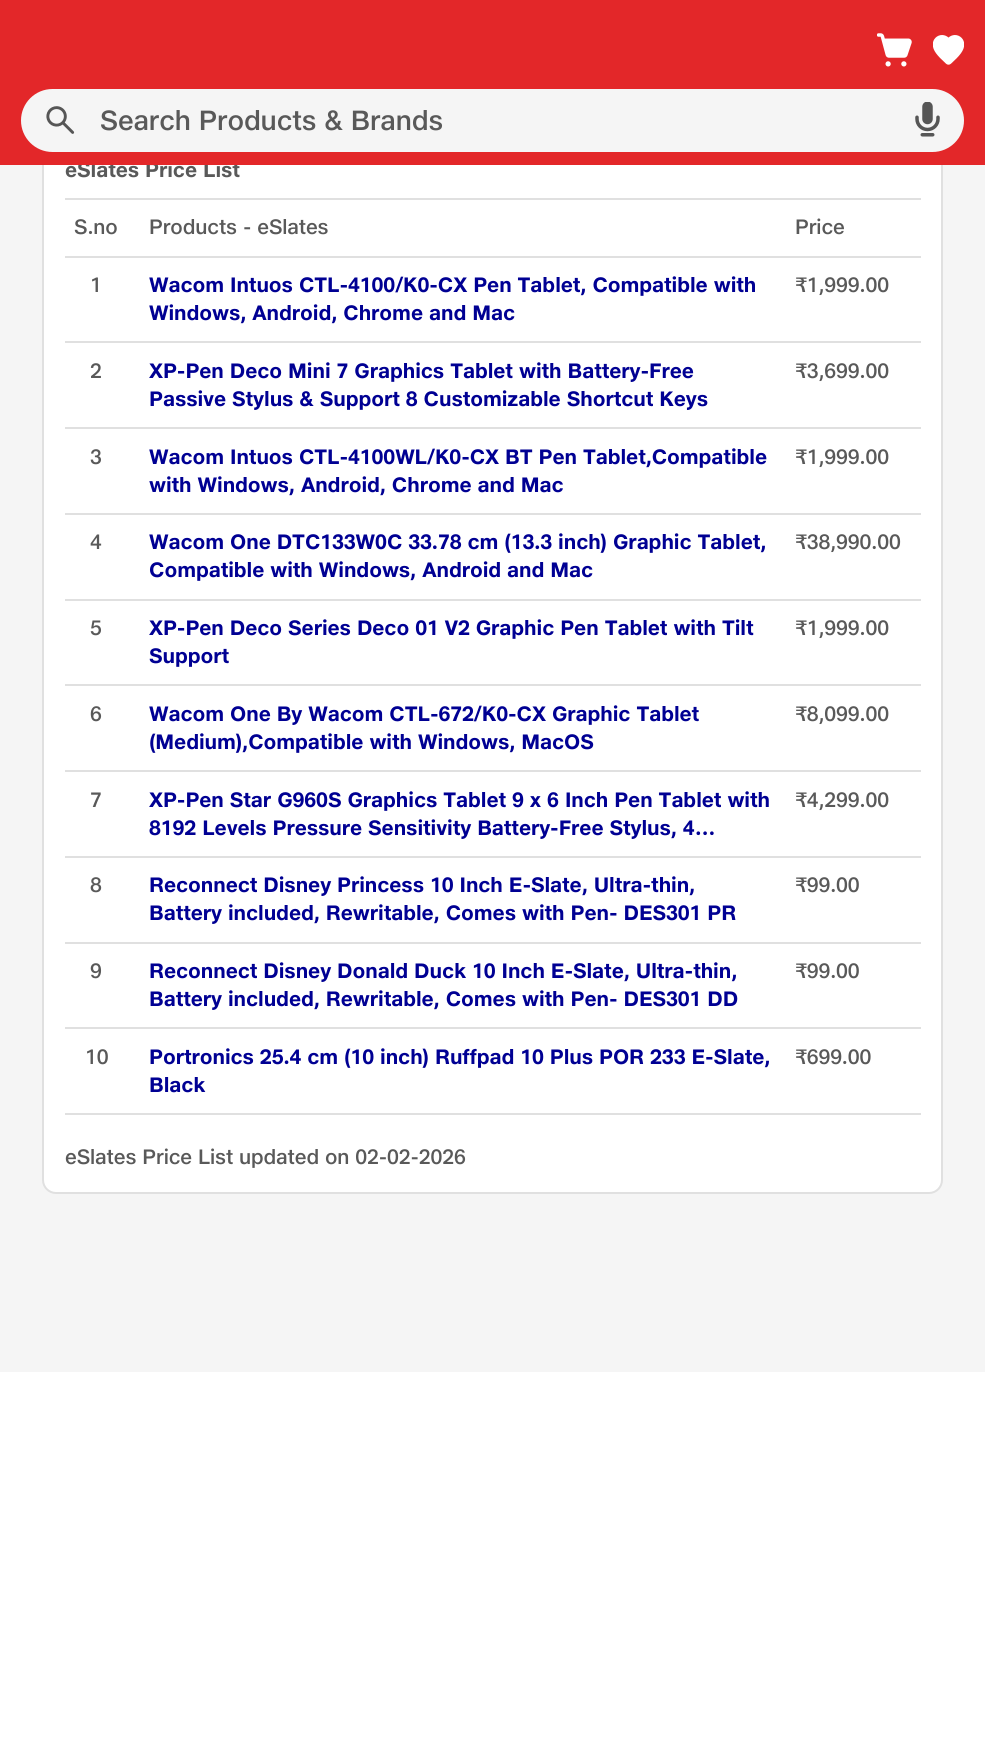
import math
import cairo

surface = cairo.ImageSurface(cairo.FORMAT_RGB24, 985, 1753)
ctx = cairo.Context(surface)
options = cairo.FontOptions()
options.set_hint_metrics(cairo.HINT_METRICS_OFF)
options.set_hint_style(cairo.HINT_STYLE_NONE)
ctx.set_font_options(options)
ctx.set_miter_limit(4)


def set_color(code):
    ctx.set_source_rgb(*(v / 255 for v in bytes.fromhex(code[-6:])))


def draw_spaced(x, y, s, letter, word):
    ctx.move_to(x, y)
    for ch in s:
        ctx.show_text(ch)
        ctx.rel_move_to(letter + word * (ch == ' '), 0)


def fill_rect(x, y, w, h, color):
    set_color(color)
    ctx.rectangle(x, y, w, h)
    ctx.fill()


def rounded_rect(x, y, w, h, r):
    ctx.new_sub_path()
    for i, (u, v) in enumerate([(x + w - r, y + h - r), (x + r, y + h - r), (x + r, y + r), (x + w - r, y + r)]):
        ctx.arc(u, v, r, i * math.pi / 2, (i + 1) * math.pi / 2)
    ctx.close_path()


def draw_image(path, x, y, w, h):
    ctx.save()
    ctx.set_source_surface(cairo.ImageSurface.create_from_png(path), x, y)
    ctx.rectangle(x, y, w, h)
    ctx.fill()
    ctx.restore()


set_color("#ffffff")
ctx.paint()
fill_rect(0, 165, 985, 1207, "#f5f5f5")
set_color("#ffffff")
rounded_rect(43, 134, 899, 1059, 13)
ctx.fill_preserve()
set_color("#e0e0e0")
ctx.stroke()
ctx.select_font_face("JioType", cairo.FONT_SLANT_NORMAL, cairo.FONT_WEIGHT_BOLD)
ctx.set_font_size(21)
set_color("#595959")
draw_spaced(65, 177, "eSlates Price List", -0.1, 0)
fill_rect(0, 0, 985, 165, "#e32729")
draw_image("assets/img1.png", 877, 33, 35, 34)
draw_image("assets/img2.png", 933, 35, 31, 30)
set_color("#f5f5f5")
rounded_rect(21, 89, 943, 63, 31.5)
ctx.fill()
draw_image("assets/img3.png", 46, 106, 29, 28)
ctx.select_font_face("JioType Medium")
ctx.set_font_size(28)
set_color("#595959")
draw_spaced(100, 130, "Search Products & Brands", -0.1, 0)
draw_image("assets/img4.png", 915, 102, 25, 35)
fill_rect(65, 198, 856, 2, "#e0e0e0")
fill_rect(65, 256, 856, 2, "#e0e0e0")
ctx.set_font_size(21)
set_color("#595959")
draw_spaced(74, 234, "S.no", -0.1, 0)
draw_spaced(149, 234, "Products - eSlates", -0.1, 0)
draw_spaced(795, 234, "Price", -0.1, 0)
fill_rect(65, 341, 856, 2, "#e0e0e0")
set_color("#595959")
draw_spaced(90, 292, "1", -0.1, 0)
ctx.select_font_face("JioType", cairo.FONT_SLANT_NORMAL, cairo.FONT_WEIGHT_BOLD)
set_color("#000093")
draw_spaced(149, 292, "Wacom Intuos CTL-4100/K0-CX Pen Tablet, Compatible with", -0.1, 0)
draw_spaced(149, 320, "Windows, Android, Chrome and Mac", -0.1, 0)
ctx.select_font_face("JioType Medium")
set_color("#595959")
draw_spaced(795, 292, "₹1,999.00", -0.1, 0)
fill_rect(65, 427, 856, 2, "#e0e0e0")
set_color("#595959")
draw_spaced(90, 378, "2", -0.1, 0)
ctx.select_font_face("JioType", cairo.FONT_SLANT_NORMAL, cairo.FONT_WEIGHT_BOLD)
set_color("#000093")
draw_spaced(149, 378, "XP-Pen Deco Mini 7 Graphics Tablet with Battery-Free", -0.1, 0)
draw_spaced(149, 406, "Passive Stylus & Support 8 Customizable Shortcut Keys", -0.1, 0)
ctx.select_font_face("JioType Medium")
set_color("#595959")
draw_spaced(795, 378, "₹3,699.00", -0.1, 0)
fill_rect(65, 513, 856, 2, "#e0e0e0")
set_color("#595959")
draw_spaced(90, 464, "3", -0.1, 0)
ctx.select_font_face("JioType", cairo.FONT_SLANT_NORMAL, cairo.FONT_WEIGHT_BOLD)
set_color("#000093")
draw_spaced(149, 464, "Wacom Intuos CTL-4100WL/K0-CX BT Pen Tablet,Compatible", -0.1, 0)
draw_spaced(149, 492, "with Windows, Android, Chrome and Mac", -0.1, 0)
ctx.select_font_face("JioType Medium")
set_color("#595959")
draw_spaced(795, 464, "₹1,999.00", -0.1, 0)
fill_rect(65, 599, 856, 2, "#e0e0e0")
set_color("#595959")
draw_spaced(90, 549, "4", -0.1, 0)
ctx.select_font_face("JioType", cairo.FONT_SLANT_NORMAL, cairo.FONT_WEIGHT_BOLD)
set_color("#000093")
draw_spaced(149, 549, "Wacom One DTC133W0C 33.78 cm (13.3 inch) Graphic Tablet,", -0.1, 0)
draw_spaced(149, 577, "Compatible with Windows, Android and Mac", -0.1, 0)
ctx.select_font_face("JioType Medium")
set_color("#595959")
draw_spaced(795, 549, "₹38,990.00", -0.1, 0)
fill_rect(65, 684, 856, 2, "#e0e0e0")
set_color("#595959")
draw_spaced(90, 635, "5", -0.1, 0)
ctx.select_font_face("JioType", cairo.FONT_SLANT_NORMAL, cairo.FONT_WEIGHT_BOLD)
set_color("#000093")
draw_spaced(149, 635, "XP-Pen Deco Series Deco 01 V2 Graphic Pen Tablet with Tilt", -0.1, 0)
draw_spaced(149, 663, "Support", -0.1, 0)
ctx.select_font_face("JioType Medium")
set_color("#595959")
draw_spaced(795, 635, "₹1,999.00", -0.1, 0)
fill_rect(65, 770, 856, 2, "#e0e0e0")
set_color("#595959")
draw_spaced(90, 721, "6", -0.1, 0)
ctx.select_font_face("JioType", cairo.FONT_SLANT_NORMAL, cairo.FONT_WEIGHT_BOLD)
set_color("#000093")
draw_spaced(149, 721, "Wacom One By Wacom CTL-672/K0-CX Graphic Tablet", -0.1, 0)
draw_spaced(149, 749, "(Medium),Compatible with Windows, MacOS", -0.1, 0)
ctx.select_font_face("JioType Medium")
set_color("#595959")
draw_spaced(795, 721, "₹8,099.00", -0.1, 0)
fill_rect(65, 856, 856, 2, "#e0e0e0")
set_color("#595959")
draw_spaced(90, 807, "7", -0.1, 0)
ctx.select_font_face("JioType", cairo.FONT_SLANT_NORMAL, cairo.FONT_WEIGHT_BOLD)
set_color("#000093")
draw_spaced(149, 807, "XP-Pen Star G960S Graphics Tablet 9 x 6 Inch Pen Tablet with", -0.1, 0)
draw_spaced(149, 835, "8192 Levels Pressure Sensitivity Battery-Free Stylus, 4…", -0.1, 0)
ctx.select_font_face("JioType Medium")
set_color("#595959")
draw_spaced(795, 807, "₹4,299.00", -0.1, 0)
fill_rect(65, 942, 856, 2, "#e0e0e0")
set_color("#595959")
draw_spaced(90, 892, "8", -0.1, 0)
ctx.select_font_face("JioType", cairo.FONT_SLANT_NORMAL, cairo.FONT_WEIGHT_BOLD)
set_color("#000093")
draw_spaced(149, 892, "Reconnect Disney Princess 10 Inch E-Slate, Ultra-thin,", -0.1, 0)
draw_spaced(149, 920, "Battery included, Rewritable, Comes with Pen- DES301 PR", -0.1, 0)
ctx.select_font_face("JioType Medium")
set_color("#595959")
draw_spaced(795, 892, "₹99.00", -0.1, 0)
fill_rect(65, 1027, 856, 2, "#e0e0e0")
set_color("#595959")
draw_spaced(90, 978, "9", -0.1, 0)
ctx.select_font_face("JioType", cairo.FONT_SLANT_NORMAL, cairo.FONT_WEIGHT_BOLD)
set_color("#000093")
draw_spaced(149, 978, "Reconnect Disney Donald Duck 10 Inch E-Slate, Ultra-thin,", -0.1, 0)
draw_spaced(149, 1006, "Battery included, Rewritable, Comes with Pen- DES301 DD", -0.1, 0)
ctx.select_font_face("JioType Medium")
set_color("#595959")
draw_spaced(795, 978, "₹99.00", -0.1, 0)
fill_rect(65, 1113, 856, 2, "#e0e0e0")
set_color("#595959")
draw_spaced(85, 1064, "10", -0.1, 0)
ctx.select_font_face("JioType", cairo.FONT_SLANT_NORMAL, cairo.FONT_WEIGHT_BOLD)
set_color("#000093")
draw_spaced(149, 1064, "Portronics 25.4 cm (10 inch) Ruffpad 10 Plus POR 233 E-Slate,", -0.1, 0)
draw_spaced(149, 1092, "Black", -0.1, 0)
ctx.select_font_face("JioType Medium")
set_color("#595959")
draw_spaced(795, 1064, "₹699.00", -0.1, 0)
draw_spaced(65, 1164, "eSlates Price List updated on 02-02-2026", -0.1, 0)
surface.write_to_png("output.png")
